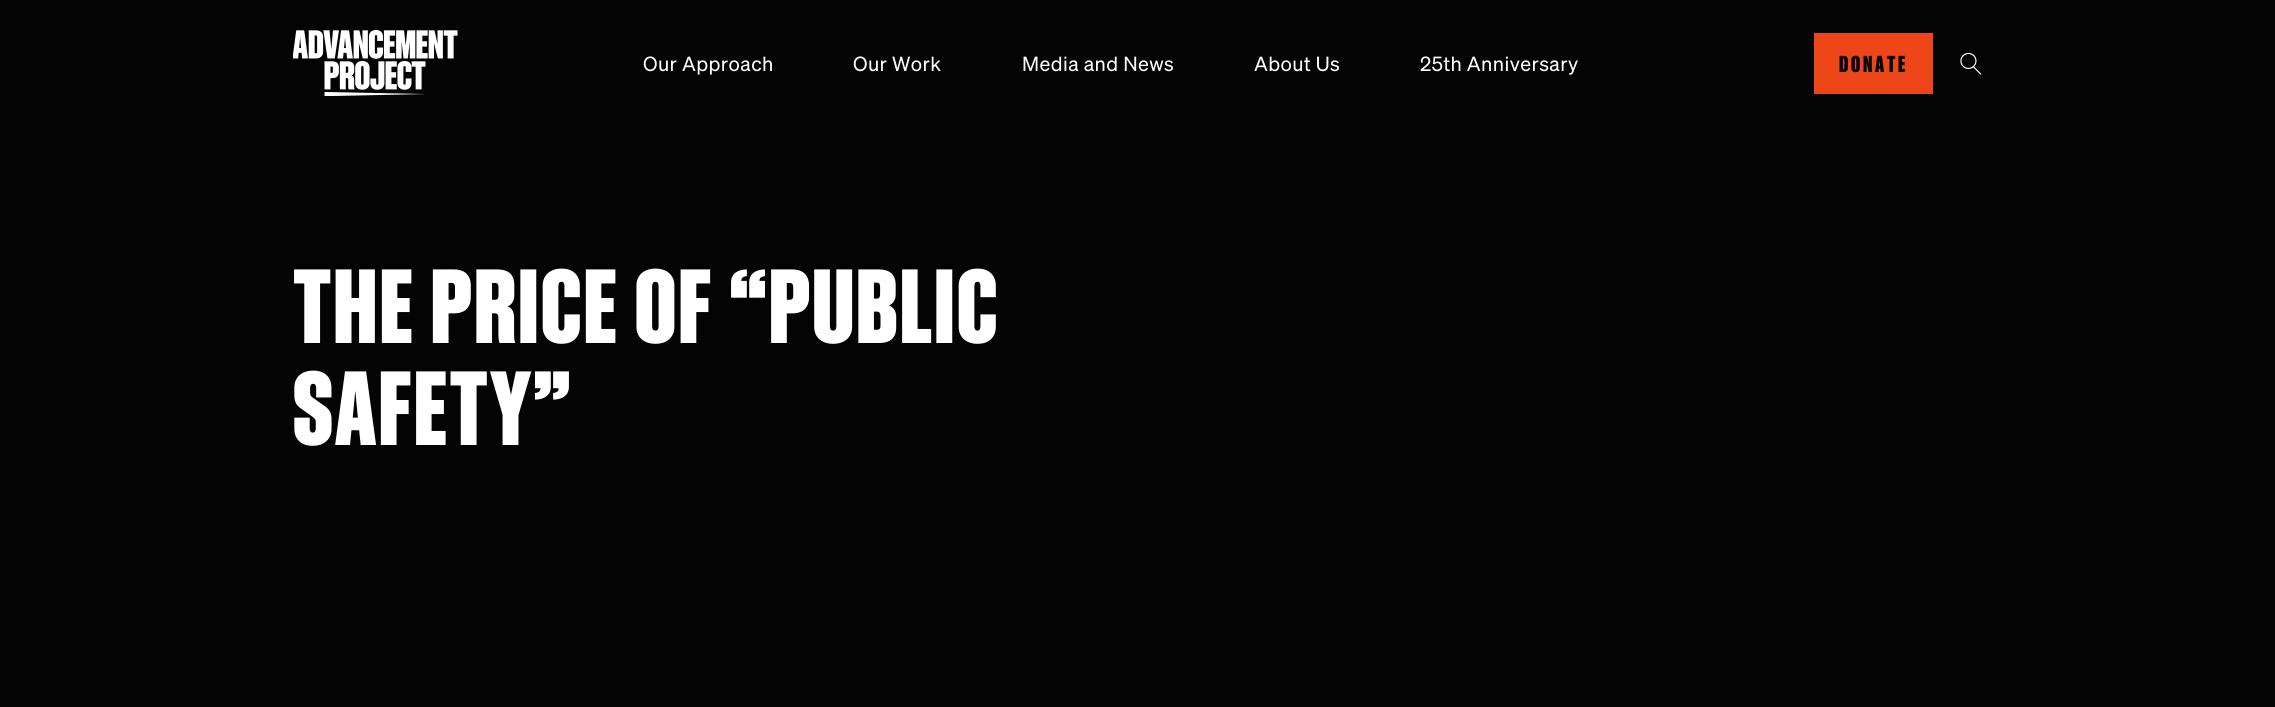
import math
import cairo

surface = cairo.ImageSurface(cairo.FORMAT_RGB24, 2275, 707)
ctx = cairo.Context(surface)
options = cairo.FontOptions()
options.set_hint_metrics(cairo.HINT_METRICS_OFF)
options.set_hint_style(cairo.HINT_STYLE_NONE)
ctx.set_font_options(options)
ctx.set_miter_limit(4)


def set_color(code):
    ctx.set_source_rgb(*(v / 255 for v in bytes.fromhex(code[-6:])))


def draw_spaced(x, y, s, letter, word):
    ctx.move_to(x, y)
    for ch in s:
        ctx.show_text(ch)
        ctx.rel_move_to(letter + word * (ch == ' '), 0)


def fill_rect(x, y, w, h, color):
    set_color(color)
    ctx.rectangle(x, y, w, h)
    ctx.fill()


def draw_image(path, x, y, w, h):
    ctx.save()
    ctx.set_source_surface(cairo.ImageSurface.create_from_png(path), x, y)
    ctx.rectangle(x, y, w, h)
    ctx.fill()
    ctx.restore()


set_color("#ffffff")
ctx.paint()
set_color("#040404")
ctx.new_path()
ctx.move_to(0, 0)
ctx.line_to(0, 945)
ctx.line_to(2275, 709)
ctx.line_to(2275, 0)
ctx.close_path()
ctx.fill()
draw_image("assets/img1.png", 293, 30, 165, 66)
ctx.select_font_face("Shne")
ctx.set_font_size(20)
set_color("#ffffff")
draw_spaced(643, 71, "Our Approach", 0.4, 0)
draw_spaced(853, 71, "Our Work", 0.4, 0)
draw_spaced(1022, 71, "Media and News", 0.4, 0)
draw_spaced(1254, 71, "About Us", 0.4, 0)
draw_spaced(1420, 71, "25th Anniversary", 0.4, 0)
fill_rect(1814, 33, 119, 61, "#ed4619")
ctx.select_font_face("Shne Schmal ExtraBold")
ctx.set_font_size(22.5)
set_color("#040404")
draw_spaced(1839, 72, "DONATE", 2.75, 0)
draw_image("assets/img2.png", 1960, 53, 22, 22)
ctx.set_font_size(102.5)
set_color("#ffffff")
draw_spaced(293, 343, "THE PRICE OF “PUBLIC", 2, 0)
draw_spaced(293, 445, "SAFETY”", 2, 0)
surface.write_to_png("output.png")
